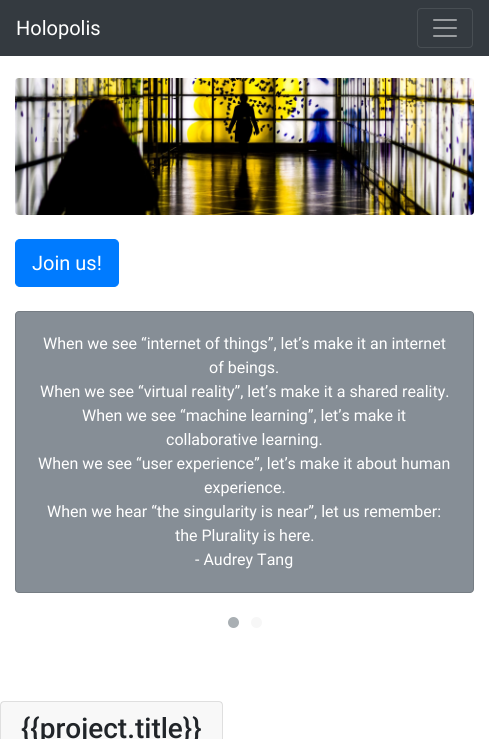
import math
import cairo

surface = cairo.ImageSurface(cairo.FORMAT_RGB24, 489, 739)
ctx = cairo.Context(surface)
options = cairo.FontOptions()
options.set_hint_metrics(cairo.HINT_METRICS_OFF)
options.set_hint_style(cairo.HINT_STYLE_NONE)
ctx.set_font_options(options)
ctx.set_miter_limit(4)


def set_color(code):
    ctx.set_source_rgb(*(v / 255 for v in bytes.fromhex(code[-6:])))


def draw_text(x, y, s, family, size, color, bold=False, italic=False):
    ctx.select_font_face(family, cairo.FONT_SLANT_ITALIC if italic else cairo.FONT_SLANT_NORMAL, cairo.FONT_WEIGHT_BOLD if bold else cairo.FONT_WEIGHT_NORMAL)
    ctx.set_font_size(size)
    set_color(color)
    ctx.move_to(x, y)
    ctx.show_text(s)


def fill_rect(x, y, w, h, color):
    set_color(color)
    ctx.rectangle(x, y, w, h)
    ctx.fill()


def rounded_rect(x, y, w, h, r):
    ctx.new_sub_path()
    for i, (u, v) in enumerate([(x + w - r, y + h - r), (x + r, y + h - r), (x + r, y + r), (x + w - r, y + r)]):
        ctx.arc(u, v, r, i * math.pi / 2, (i + 1) * math.pi / 2)
    ctx.close_path()


def draw_image(path, x, y, w, h):
    ctx.save()
    ctx.set_source_surface(cairo.ImageSurface.create_from_png(path), x, y)
    ctx.rectangle(x, y, w, h)
    ctx.fill()
    ctx.restore()


set_color("#ffffff")
ctx.paint()
fill_rect(0, 0, 489, 56, "#343a40")
draw_text(16, 35, "Holopolis", "Roboto", 20, "#ffffff")
rounded_rect(417.5, 8.5, 55, 39, 3.5)
set_color("#484e53")
ctx.set_line_width(1)
ctx.stroke()
draw_image("assets/img1.png", 433, 19, 24, 18)
draw_image("assets/img2.png", 15, 78, 459, 137)
set_color("#007bff")
rounded_rect(15.5, 239.5, 103, 47, 4.5)
ctx.fill_preserve()
ctx.stroke()
draw_text(32, 270, "Join us!", "Roboto", 20, "#ffffff")
set_color("#868e96")
rounded_rect(15, 311, 459, 282, 4)
ctx.fill()
rounded_rect(15.5, 311.5, 458, 281, 3.5)
ctx.set_source_rgba(0, 0, 0, 0.12)
ctx.stroke()
draw_text(43, 349, "When we see “internet of things”, let’s make it an internet", "Roboto", 16, "#ffffff")
draw_text(209, 373, "of beings.", "Roboto", 16, "#ffffff")
draw_text(40, 397, "When we see “virtual reality”, let’s make it a shared reality.", "Roboto", 16, "#ffffff")
draw_text(82, 421, "When we see “machine learning”, let’s make it", "Roboto", 16, "#ffffff")
draw_text(166, 445, "collaborative learning.", "Roboto", 16, "#ffffff")
draw_text(38, 469, "When we see “user experience”, let’s make it about human", "Roboto", 16, "#ffffff")
draw_text(204, 493, "experience.", "Roboto", 16, "#ffffff")
draw_text(47, 517, "When we hear “the singularity is near”, let us remember:", "Roboto", 16, "#ffffff")
draw_text(175, 541, "the Plurality is here.", "Roboto", 16, "#ffffff")
draw_text(195, 565, "- Audrey Tang", "Roboto", 16, "#ffffff")
set_color("#a9afb3")
ctx.new_path()
ctx.arc(233.5, 622.5, 5.5, 0, 2 * math.pi)
ctx.fill()
set_color("#f7f7f7")
ctx.arc(256.5, 622.5, 5.5, 0, 2 * math.pi)
ctx.fill()
rounded_rect(0.5, 701.5, 222, 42, 3.5)
set_color("#dfdfdf")
ctx.stroke()
ctx.set_source_rgba(0, 0, 0, 0.03)
ctx.rectangle(1, 702, 221, 37)
ctx.fill()
draw_text(21, 738, "{{project.title}}", "Roboto Medium", 28, "#212529")
surface.write_to_png("output.png")
